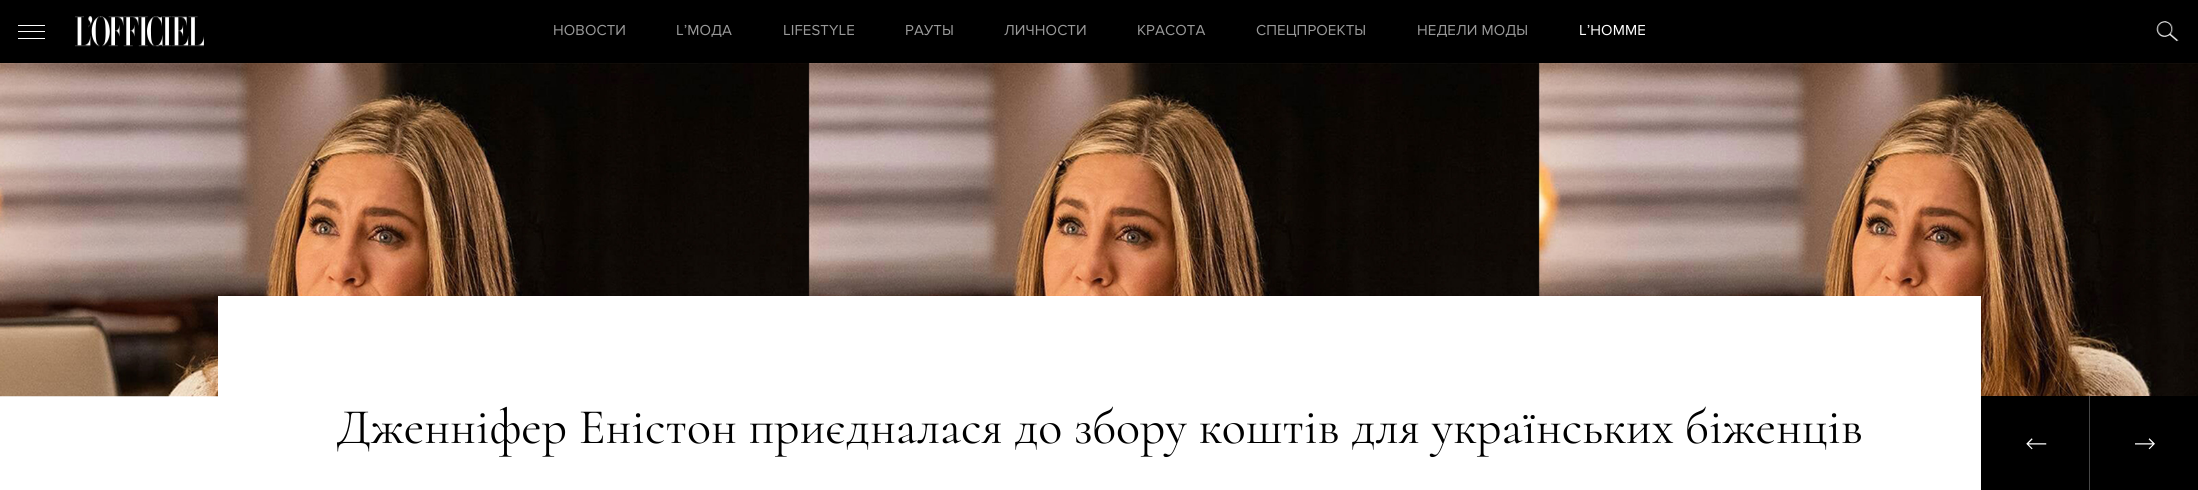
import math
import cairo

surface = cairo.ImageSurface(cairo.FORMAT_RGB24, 2198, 490)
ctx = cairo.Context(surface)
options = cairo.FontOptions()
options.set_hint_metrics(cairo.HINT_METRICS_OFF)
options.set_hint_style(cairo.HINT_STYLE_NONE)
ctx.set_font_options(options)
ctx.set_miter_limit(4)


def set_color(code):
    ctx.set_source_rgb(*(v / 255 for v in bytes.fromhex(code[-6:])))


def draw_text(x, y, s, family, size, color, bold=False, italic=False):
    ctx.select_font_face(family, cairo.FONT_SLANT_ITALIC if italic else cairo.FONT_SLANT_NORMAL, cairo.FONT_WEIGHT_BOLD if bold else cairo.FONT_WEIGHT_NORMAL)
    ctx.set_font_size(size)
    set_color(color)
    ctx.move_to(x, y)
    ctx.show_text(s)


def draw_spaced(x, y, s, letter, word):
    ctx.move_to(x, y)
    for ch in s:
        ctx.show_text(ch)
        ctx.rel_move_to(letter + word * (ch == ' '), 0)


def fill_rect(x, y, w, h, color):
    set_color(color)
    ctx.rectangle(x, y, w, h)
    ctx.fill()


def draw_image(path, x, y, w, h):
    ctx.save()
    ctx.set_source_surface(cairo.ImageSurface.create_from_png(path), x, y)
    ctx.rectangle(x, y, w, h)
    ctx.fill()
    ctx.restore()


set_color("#ffffff")
ctx.paint()
fill_rect(0, 0, 2198, 63, "#000000")
fill_rect(18, 25, 27, 1, "#ffffff")
fill_rect(18, 31, 27, 1, "#ffffff")
fill_rect(18, 38, 27, 1, "#ffffff")
draw_image("assets/img1.png", 75, 16, 129, 31)
ctx.select_font_face("Proxima Nova")
ctx.set_font_size(15)
set_color("#999999")
draw_spaced(553, 35, "НОВОСТИ", 0.1, 0)
draw_spaced(676, 35, "L’МОДА", 0.1, 0)
draw_spaced(783, 35, "LIFESTYLE", 0.1, 0)
draw_spaced(905, 35, "РАУТЫ", 0.1, 0)
draw_spaced(1004, 35, "ЛИЧНОСТИ", 0.1, 0)
draw_spaced(1137, 35, "КРАСОТА", 0.1, 0)
draw_spaced(1256, 35, "СПЕЦПРОЕКТЫ", 0.1, 0)
draw_spaced(1417, 35, "НЕДЕЛИ МОДЫ", 0.1, 0)
set_color("#ffffff")
draw_spaced(1579, 35, "L’HOMME", 0.1, 0)
draw_image("assets/img2.png", 2156, 21, 23, 21)
draw_image("assets/img3.png", 0, 63, 2198, 334)
fill_rect(1981, 396, 108, 94, "#000000")
draw_image("assets/img4.png", 2026, 438, 21, 12)
fill_rect(2090, 396, 108, 94, "#000000")
fill_rect(2089, 396, 1, 94, "#474747")
draw_image("assets/img5.png", 2135, 438, 20, 12)
fill_rect(218, 296, 1763, 101, "#ffffff")
draw_text(336, 443, "Дженніфер Еністон приєдналася до збору коштів для українських біженців", "Cormorant", 50, "#000000")
surface.write_to_png("output.png")
